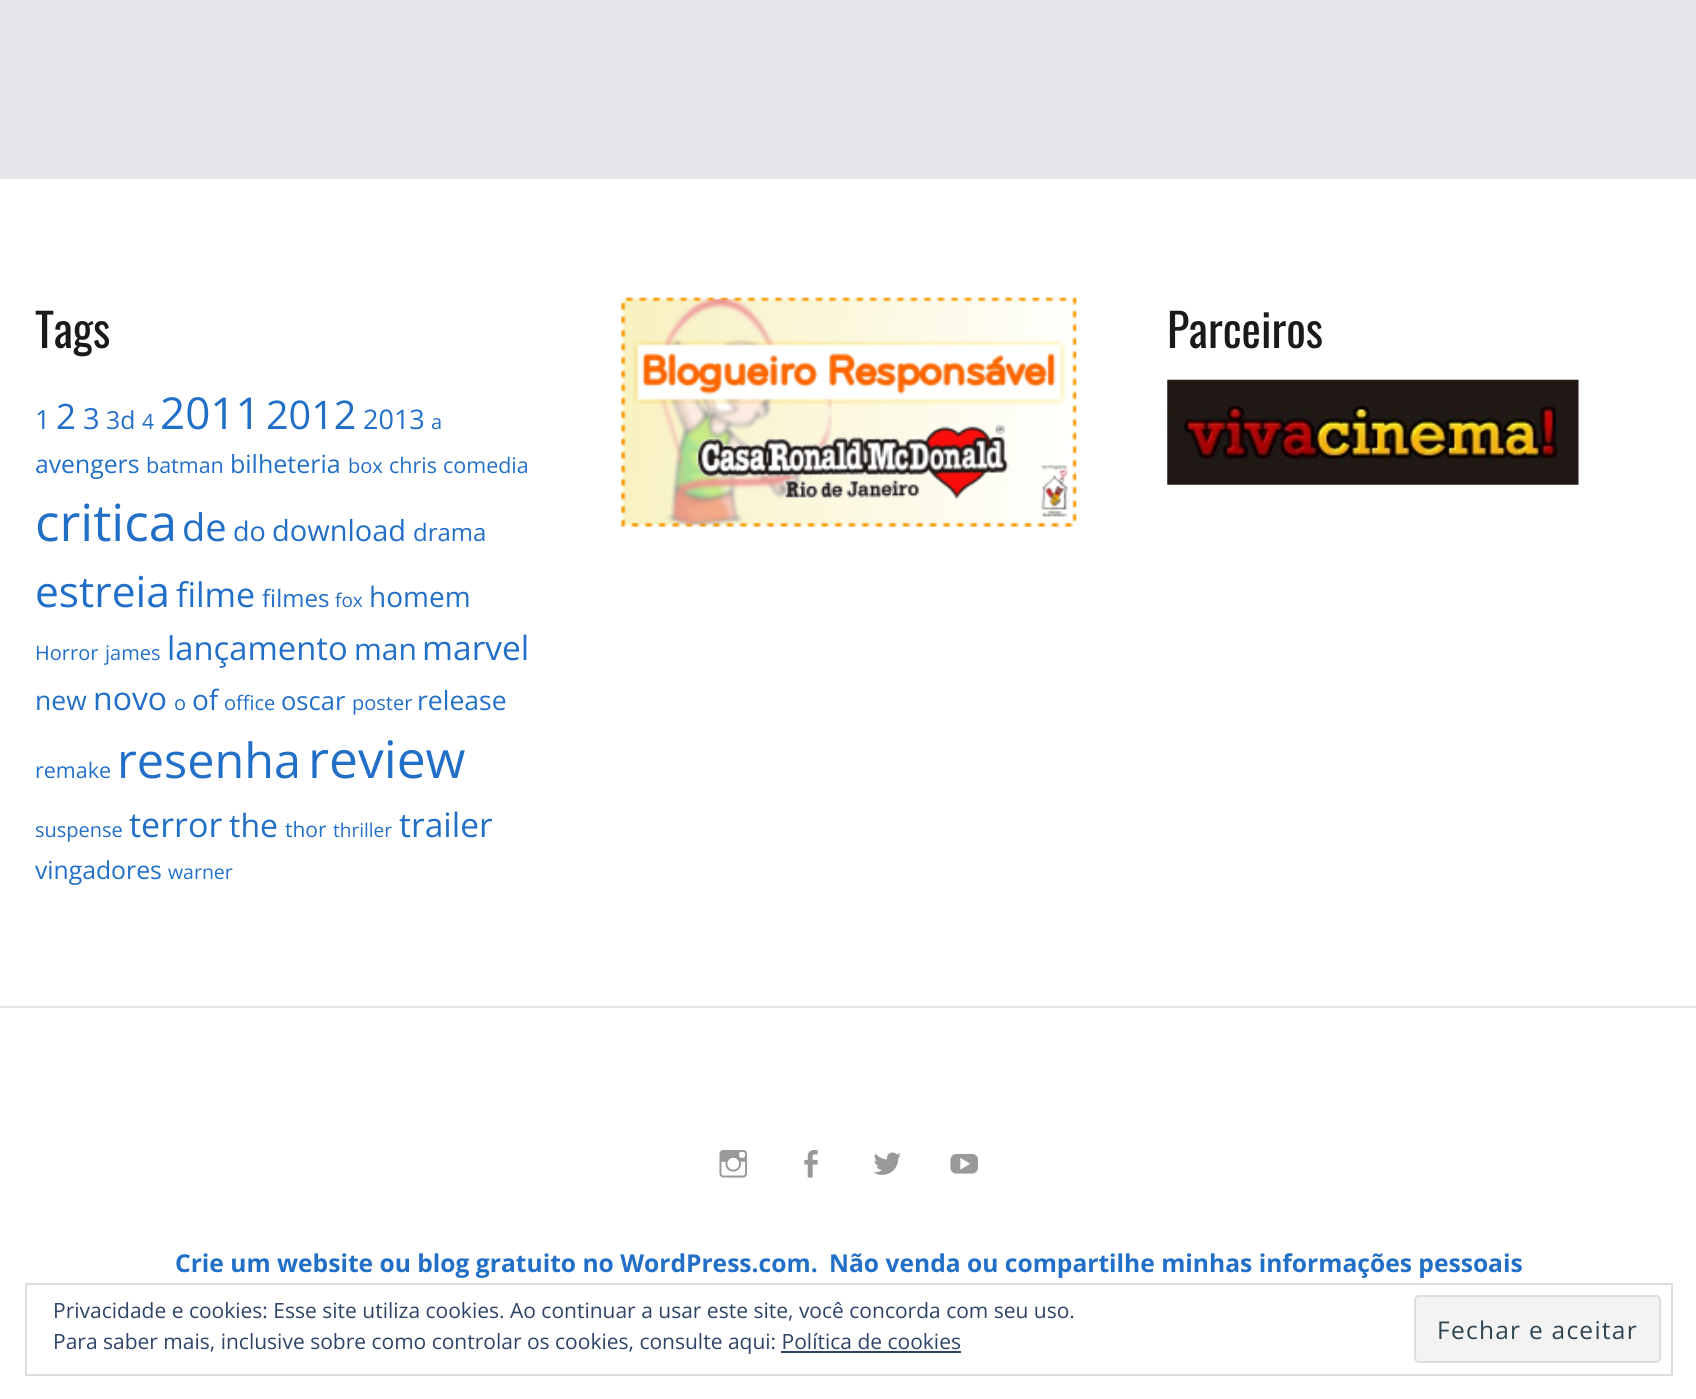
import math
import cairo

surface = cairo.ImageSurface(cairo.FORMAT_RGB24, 1696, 1399)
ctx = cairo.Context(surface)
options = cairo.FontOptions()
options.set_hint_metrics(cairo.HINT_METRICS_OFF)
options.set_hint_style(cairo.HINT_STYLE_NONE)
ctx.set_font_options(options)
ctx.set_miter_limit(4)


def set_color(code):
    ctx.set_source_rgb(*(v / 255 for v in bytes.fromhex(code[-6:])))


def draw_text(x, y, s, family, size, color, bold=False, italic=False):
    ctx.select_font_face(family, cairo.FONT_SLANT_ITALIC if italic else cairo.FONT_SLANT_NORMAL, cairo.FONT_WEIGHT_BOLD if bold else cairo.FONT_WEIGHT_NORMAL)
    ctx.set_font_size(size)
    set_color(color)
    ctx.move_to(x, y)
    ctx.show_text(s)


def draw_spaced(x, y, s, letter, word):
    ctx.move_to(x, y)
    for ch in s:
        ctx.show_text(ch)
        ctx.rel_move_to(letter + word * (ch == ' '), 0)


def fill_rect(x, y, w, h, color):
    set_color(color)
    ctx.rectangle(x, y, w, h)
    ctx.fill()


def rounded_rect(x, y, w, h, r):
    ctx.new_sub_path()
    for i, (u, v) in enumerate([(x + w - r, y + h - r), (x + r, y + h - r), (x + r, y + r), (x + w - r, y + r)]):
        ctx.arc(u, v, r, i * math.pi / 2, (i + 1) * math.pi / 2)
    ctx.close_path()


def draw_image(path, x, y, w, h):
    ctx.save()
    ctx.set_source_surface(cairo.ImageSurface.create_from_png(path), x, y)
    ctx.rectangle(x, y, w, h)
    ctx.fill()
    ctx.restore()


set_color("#e8e4eb")
ctx.paint()
fill_rect(0, 179, 1696, 827, "#ffffff")
fill_rect(0, 1006, 1696, 2, "#e6e6e6")
draw_text(35, 348, "Tags", "Oswald", 46, "#1a1a1a")
draw_text(35, 429, "1", "Open Sans", 26.5, "#226fc8")
draw_text(56, 429, "2", "Open Sans", 35, "#226fc8")
draw_text(83, 429, "3", "Open Sans", 29, "#226fc8")
draw_text(106, 429, "3d", "Open Sans", 24.75, "#226fc8")
draw_text(142, 429, "4", "Open Sans", 21, "#226fc8")
draw_text(160, 429, "2011", "Open Sans", 44, "#226fc8")
draw_text(266, 429, "2012", "Open Sans", 39.5, "#226fc8")
draw_text(363, 429, "2013", "Open Sans", 27, "#226fc8")
draw_text(431, 429, "a", "Open Sans", 20, "#226fc8")
draw_text(35, 473, "avengers", "Open Sans", 24.75, "#226fc8")
draw_text(146, 473, "batman", "Open Sans", 21.5, "#226fc8")
draw_text(230, 473, "bilheteria", "Open Sans", 25, "#226fc8")
draw_text(348, 473, "box", "Open Sans", 20, "#226fc8")
draw_text(389, 473, "chris", "Open Sans", 21.5, "#226fc8")
draw_text(443, 473, "comedia", "Open Sans", 21.5, "#226fc8")
draw_text(35, 541, "critica", "Open Sans", 51, "#226fc8")
draw_text(182, 541, "de", "Open Sans", 38, "#226fc8")
draw_text(233, 541, "do", "Open Sans", 27, "#226fc8")
draw_text(272, 541, "download", "Open Sans", 29, "#226fc8")
draw_text(413, 541, "drama", "Open Sans", 24, "#226fc8")
draw_text(35, 607, "estreia", "Open Sans", 42.5, "#226fc8")
draw_text(176, 607, "filme", "Open Sans", 34, "#226fc8")
draw_text(262, 607, "filmes", "Open Sans", 24, "#226fc8")
draw_text(335, 607, "fox", "Open Sans", 19, "#226fc8")
draw_text(369, 607, "homem", "Open Sans", 28, "#226fc8")
draw_text(35, 660, "Horror", "Open Sans", 20, "#226fc8")
draw_text(105, 660, "james", "Open Sans", 20, "#226fc8")
draw_text(167, 660, "lançamento", "Open Sans", 32.75, "#226fc8")
draw_text(354, 660, "man", "Open Sans", 30, "#226fc8")
draw_text(422, 660, "marvel", "Open Sans", 33.5, "#226fc8")
draw_text(35, 710, "new", "Open Sans", 26.5, "#226fc8")
draw_text(93, 710, "novo", "Open Sans", 32, "#226fc8")
draw_text(174, 710, "o", "Open Sans", 20, "#226fc8")
draw_text(192, 710, "of", "Open Sans", 28, "#226fc8")
draw_text(224, 710, "office", "Open Sans", 20, "#226fc8")
draw_text(281, 710, "oscar", "Open Sans", 25.5, "#226fc8")
draw_text(352, 710, "poster", "Open Sans", 20, "#226fc8")
draw_text(417, 710, "release", "Open Sans", 26.5, "#226fc8")
draw_text(35, 778, "remake", "Open Sans", 21.5, "#226fc8")
draw_text(117, 778, "resenha", "Open Sans", 48.5, "#226fc8")
draw_text(308, 778, "review", "Open Sans", 51.5, "#226fc8")
draw_text(35, 837, "suspense", "Open Sans", 20, "#226fc8")
draw_text(129, 837, "terror", "Open Sans", 34, "#226fc8")
draw_text(229, 837, "the", "Open Sans", 32, "#226fc8")
draw_text(285, 837, "thor", "Open Sans", 21, "#226fc8")
draw_text(333, 837, "thriller", "Open Sans", 19, "#226fc8")
draw_text(399, 837, "trailer", "Open Sans", 33.5, "#226fc8")
draw_text(35, 879, "vingadores", "Open Sans", 24.75, "#226fc8")
draw_text(168, 879, "warner", "Open Sans", 19.5, "#226fc8")
draw_image("assets/img1.png", 621, 297, 456, 230)
draw_text(1167, 348, "Parceiros", "Oswald", 46, "#1a1a1a")
draw_image("assets/img2.png", 1167, 379, 412, 106)
fill_rect(0, 1008, 1696, 391, "#ffffff")
draw_image("assets/img3.png", 719, 1150, 28, 28)
draw_image("assets/img4.png", 804, 1150, 14, 28)
draw_image("assets/img5.png", 873, 1152, 28, 23)
draw_image("assets/img6.png", 950, 1153, 28, 21)
draw_text(175, 1272, "Crie um website ou blog gratuito no WordPress.com.", "Open Sans", 24.6, "#226fc8", bold=True)
draw_text(829, 1272, "Não venda ou compartilhe minhas informações pessoais", "Open Sans", 24.6, "#226fc8", bold=True)
ctx.rectangle(26, 1284, 1646, 91)
set_color("#dedede")
ctx.stroke()
draw_text(53, 1318, "Privacidade e cookies: Esse site utiliza cookies. Ao continuar a usar este site, você concorda com seu uso.", "Open Sans", 21, "#2e4467")
set_color("#f3f3f3")
rounded_rect(1415, 1296, 245, 66, 4)
ctx.fill_preserve()
set_color("#dedede")
ctx.stroke()
ctx.set_font_size(24.5)
set_color("#2e4453")
draw_spaced(1437, 1339, "Fechar e aceitar", 1.25, 0)
draw_text(53, 1349, "Para saber mais, inclusive sobre como controlar os cookies, consulte aqui: Política de cookies", "Open Sans", 21, "#2e4467")
fill_rect(781, 1351, 180, 2, "#2e4467")
surface.write_to_png("output.png")
